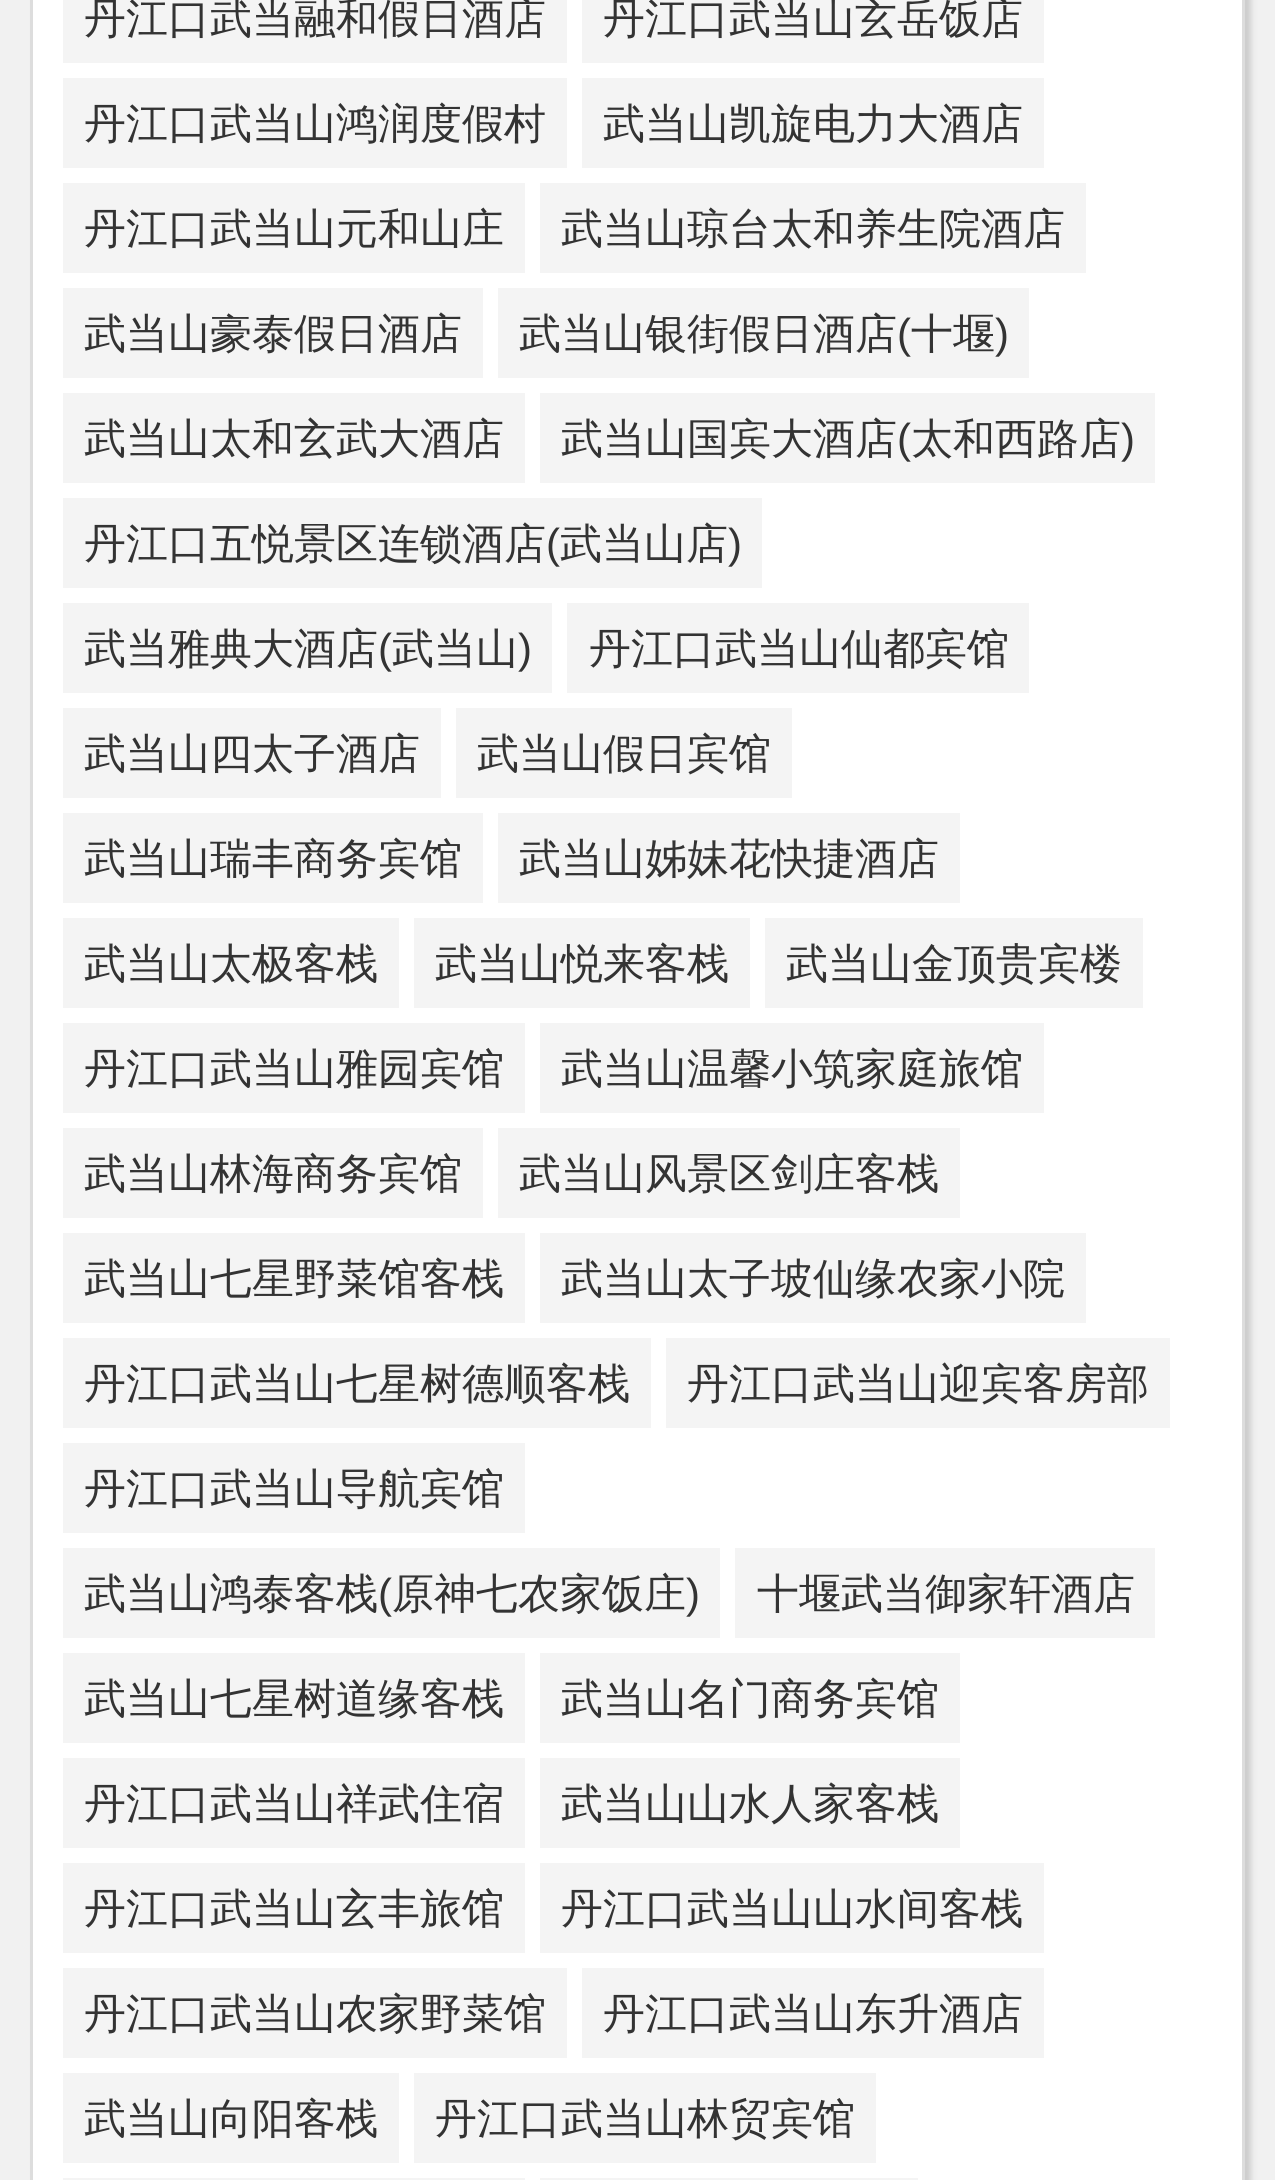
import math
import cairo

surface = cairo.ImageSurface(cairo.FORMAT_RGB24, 1275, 2180)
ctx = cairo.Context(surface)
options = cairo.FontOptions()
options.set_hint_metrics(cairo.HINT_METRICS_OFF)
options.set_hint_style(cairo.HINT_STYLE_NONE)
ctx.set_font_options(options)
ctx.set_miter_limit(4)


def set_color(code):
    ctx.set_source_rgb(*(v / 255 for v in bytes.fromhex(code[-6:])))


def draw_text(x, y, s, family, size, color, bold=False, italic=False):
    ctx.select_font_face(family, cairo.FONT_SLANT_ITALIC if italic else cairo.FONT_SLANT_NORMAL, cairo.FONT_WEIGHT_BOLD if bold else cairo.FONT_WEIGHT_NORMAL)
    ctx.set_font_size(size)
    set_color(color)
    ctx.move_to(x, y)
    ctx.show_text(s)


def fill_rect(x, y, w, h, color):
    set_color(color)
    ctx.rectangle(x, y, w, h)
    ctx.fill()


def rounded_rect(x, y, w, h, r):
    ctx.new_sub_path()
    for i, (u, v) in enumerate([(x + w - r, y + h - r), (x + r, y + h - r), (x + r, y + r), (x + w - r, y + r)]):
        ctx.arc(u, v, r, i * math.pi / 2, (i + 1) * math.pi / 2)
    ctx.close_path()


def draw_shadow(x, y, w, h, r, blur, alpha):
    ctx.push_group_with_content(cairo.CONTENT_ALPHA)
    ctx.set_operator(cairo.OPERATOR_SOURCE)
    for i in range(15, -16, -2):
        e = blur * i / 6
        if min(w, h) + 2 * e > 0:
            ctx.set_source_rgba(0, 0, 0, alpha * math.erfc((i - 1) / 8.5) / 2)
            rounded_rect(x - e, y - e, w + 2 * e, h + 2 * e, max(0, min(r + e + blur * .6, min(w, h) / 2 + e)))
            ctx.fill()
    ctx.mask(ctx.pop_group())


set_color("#f1f1f1")
ctx.paint()
set_color("#cccccc")
draw_shadow(36, -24, 1215, 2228, 15, 3, 1)
set_color("#ffffff")
ctx.rectangle(31.5, -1.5, 1212, 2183)
ctx.fill_preserve()
set_color("#dddddd")
ctx.set_line_width(3)
ctx.stroke()
fill_rect(63, 0, 504, 63, "#f4f4f4")
draw_text(84, 33, "丹江口武当融和假日酒店", "WenQuanYi Zen Hei Medium", 42, "#333333")
fill_rect(582, 0, 462, 63, "#f4f4f4")
draw_text(603, 33, "丹江口武当山玄岳饭店", "WenQuanYi Zen Hei Medium", 42, "#333333")
fill_rect(63, 78, 504, 90, "#f4f4f4")
draw_text(84, 138, "丹江口武当山鸿润度假村", "WenQuanYi Zen Hei Medium", 42, "#333333")
fill_rect(582, 78, 462, 90, "#f4f4f4")
draw_text(603, 138, "武当山凯旋电力大酒店", "WenQuanYi Zen Hei Medium", 42, "#333333")
fill_rect(63, 183, 462, 90, "#f4f4f4")
draw_text(84, 243, "丹江口武当山元和山庄", "WenQuanYi Zen Hei Medium", 42, "#333333")
fill_rect(540, 183, 546, 90, "#f4f4f4")
draw_text(561, 243, "武当山琼台太和养生院酒店", "WenQuanYi Zen Hei Medium", 42, "#333333")
fill_rect(63, 288, 420, 90, "#f4f4f4")
draw_text(84, 348, "武当山豪泰假日酒店", "WenQuanYi Zen Hei Medium", 42, "#333333")
fill_rect(498, 288, 531, 90, "#f4f4f4")
draw_text(519, 348, "武当山银街假日酒店", "WenQuanYi Zen Hei Medium", 42, "#333333")
draw_text(897, 348, "(", "Liberation Sans", 42, "#333333")
draw_text(911, 348, "十堰", "WenQuanYi Zen Hei Medium", 42, "#333333")
draw_text(995, 348, ")", "Liberation Sans", 42, "#333333")
fill_rect(63, 393, 462, 90, "#f4f4f4")
draw_text(84, 453, "武当山太和玄武大酒店", "WenQuanYi Zen Hei Medium", 42, "#333333")
fill_rect(540, 393, 615, 90, "#f4f4f4")
draw_text(561, 453, "武当山国宾大酒店", "WenQuanYi Zen Hei Medium", 42, "#333333")
draw_text(897, 453, "(", "Liberation Sans", 42, "#333333")
draw_text(911, 453, "太和西路店", "WenQuanYi Zen Hei Medium", 42, "#333333")
draw_text(1121, 453, ")", "Liberation Sans", 42, "#333333")
fill_rect(63, 498, 699, 90, "#f4f4f4")
draw_text(84, 558, "丹江口五悦景区连锁酒店", "WenQuanYi Zen Hei Medium", 42, "#333333")
draw_text(546, 558, "(", "Liberation Sans", 42, "#333333")
draw_text(560, 558, "武当山店", "WenQuanYi Zen Hei Medium", 42, "#333333")
draw_text(728, 558, ")", "Liberation Sans", 42, "#333333")
fill_rect(63, 603, 489, 90, "#f4f4f4")
draw_text(84, 663, "武当雅典大酒店", "WenQuanYi Zen Hei Medium", 42, "#333333")
draw_text(378, 663, "(", "Liberation Sans", 42, "#333333")
draw_text(392, 663, "武当山", "WenQuanYi Zen Hei Medium", 42, "#333333")
draw_text(518, 663, ")", "Liberation Sans", 42, "#333333")
fill_rect(567, 603, 462, 90, "#f4f4f4")
draw_text(589, 663, "丹江口武当山仙都宾馆", "WenQuanYi Zen Hei Medium", 42, "#333333")
fill_rect(63, 708, 378, 90, "#f4f4f4")
draw_text(84, 768, "武当山四太子酒店", "WenQuanYi Zen Hei Medium", 42, "#333333")
fill_rect(456, 708, 336, 90, "#f4f4f4")
draw_text(477, 768, "武当山假日宾馆", "WenQuanYi Zen Hei Medium", 42, "#333333")
fill_rect(63, 813, 420, 90, "#f4f4f4")
draw_text(84, 873, "武当山瑞丰商务宾馆", "WenQuanYi Zen Hei Medium", 42, "#333333")
fill_rect(498, 813, 462, 90, "#f4f4f4")
draw_text(519, 873, "武当山姊妹花快捷酒店", "WenQuanYi Zen Hei Medium", 42, "#333333")
fill_rect(63, 918, 336, 90, "#f4f4f4")
draw_text(84, 978, "武当山太极客栈", "WenQuanYi Zen Hei Medium", 42, "#333333")
fill_rect(414, 918, 336, 90, "#f4f4f4")
draw_text(435, 978, "武当山悦来客栈", "WenQuanYi Zen Hei Medium", 42, "#333333")
fill_rect(765, 918, 378, 90, "#f4f4f4")
draw_text(786, 978, "武当山金顶贵宾楼", "WenQuanYi Zen Hei Medium", 42, "#333333")
fill_rect(63, 1023, 462, 90, "#f4f4f4")
draw_text(84, 1083, "丹江口武当山雅园宾馆", "WenQuanYi Zen Hei Medium", 42, "#333333")
fill_rect(540, 1023, 504, 90, "#f4f4f4")
draw_text(561, 1083, "武当山温馨小筑家庭旅馆", "WenQuanYi Zen Hei Medium", 42, "#333333")
fill_rect(63, 1128, 420, 90, "#f4f4f4")
draw_text(84, 1188, "武当山林海商务宾馆", "WenQuanYi Zen Hei Medium", 42, "#333333")
fill_rect(498, 1128, 462, 90, "#f4f4f4")
draw_text(519, 1188, "武当山风景区剑庄客栈", "WenQuanYi Zen Hei Medium", 42, "#333333")
fill_rect(63, 1233, 462, 90, "#f4f4f4")
draw_text(84, 1293, "武当山七星野菜馆客栈", "WenQuanYi Zen Hei Medium", 42, "#333333")
fill_rect(540, 1233, 546, 90, "#f4f4f4")
draw_text(561, 1293, "武当山太子坡仙缘农家小院", "WenQuanYi Zen Hei Medium", 42, "#333333")
fill_rect(63, 1338, 588, 90, "#f4f4f4")
draw_text(84, 1398, "丹江口武当山七星树德顺客栈", "WenQuanYi Zen Hei Medium", 42, "#333333")
fill_rect(666, 1338, 504, 90, "#f4f4f4")
draw_text(687, 1398, "丹江口武当山迎宾客房部", "WenQuanYi Zen Hei Medium", 42, "#333333")
fill_rect(63, 1443, 462, 90, "#f4f4f4")
draw_text(84, 1503, "丹江口武当山导航宾馆", "WenQuanYi Zen Hei Medium", 42, "#333333")
fill_rect(63, 1548, 657, 90, "#f4f4f4")
draw_text(84, 1608, "武当山鸿泰客栈", "WenQuanYi Zen Hei Medium", 42, "#333333")
draw_text(378, 1608, "(", "Liberation Sans", 42, "#333333")
draw_text(392, 1608, "原神七农家饭庄", "WenQuanYi Zen Hei Medium", 42, "#333333")
draw_text(686, 1608, ")", "Liberation Sans", 42, "#333333")
fill_rect(735, 1548, 420, 90, "#f4f4f4")
draw_text(757, 1608, "十堰武当御家轩酒店", "WenQuanYi Zen Hei Medium", 42, "#333333")
fill_rect(63, 1653, 462, 90, "#f4f4f4")
draw_text(84, 1713, "武当山七星树道缘客栈", "WenQuanYi Zen Hei Medium", 42, "#333333")
fill_rect(540, 1653, 420, 90, "#f4f4f4")
draw_text(561, 1713, "武当山名门商务宾馆", "WenQuanYi Zen Hei Medium", 42, "#333333")
fill_rect(63, 1758, 462, 90, "#f4f4f4")
draw_text(84, 1818, "丹江口武当山祥武住宿", "WenQuanYi Zen Hei Medium", 42, "#333333")
fill_rect(540, 1758, 420, 90, "#f4f4f4")
draw_text(561, 1818, "武当山山水人家客栈", "WenQuanYi Zen Hei Medium", 42, "#333333")
fill_rect(63, 1863, 462, 90, "#f4f4f4")
draw_text(84, 1923, "丹江口武当山玄丰旅馆", "WenQuanYi Zen Hei Medium", 42, "#333333")
fill_rect(540, 1863, 504, 90, "#f4f4f4")
draw_text(561, 1923, "丹江口武当山山水间客栈", "WenQuanYi Zen Hei Medium", 42, "#333333")
fill_rect(63, 1968, 504, 90, "#f4f4f4")
draw_text(84, 2028, "丹江口武当山农家野菜馆", "WenQuanYi Zen Hei Medium", 42, "#333333")
fill_rect(582, 1968, 462, 90, "#f4f4f4")
draw_text(603, 2028, "丹江口武当山东升酒店", "WenQuanYi Zen Hei Medium", 42, "#333333")
fill_rect(63, 2073, 336, 90, "#f4f4f4")
draw_text(84, 2133, "武当山向阳客栈", "WenQuanYi Zen Hei Medium", 42, "#333333")
fill_rect(414, 2073, 462, 90, "#f4f4f4")
draw_text(435, 2133, "丹江口武当山林贸宾馆", "WenQuanYi Zen Hei Medium", 42, "#333333")
fill_rect(63, 2178, 462, 2, "#f4f4f4")
fill_rect(540, 2178, 378, 2, "#f4f4f4")
surface.write_to_png("output.png")
